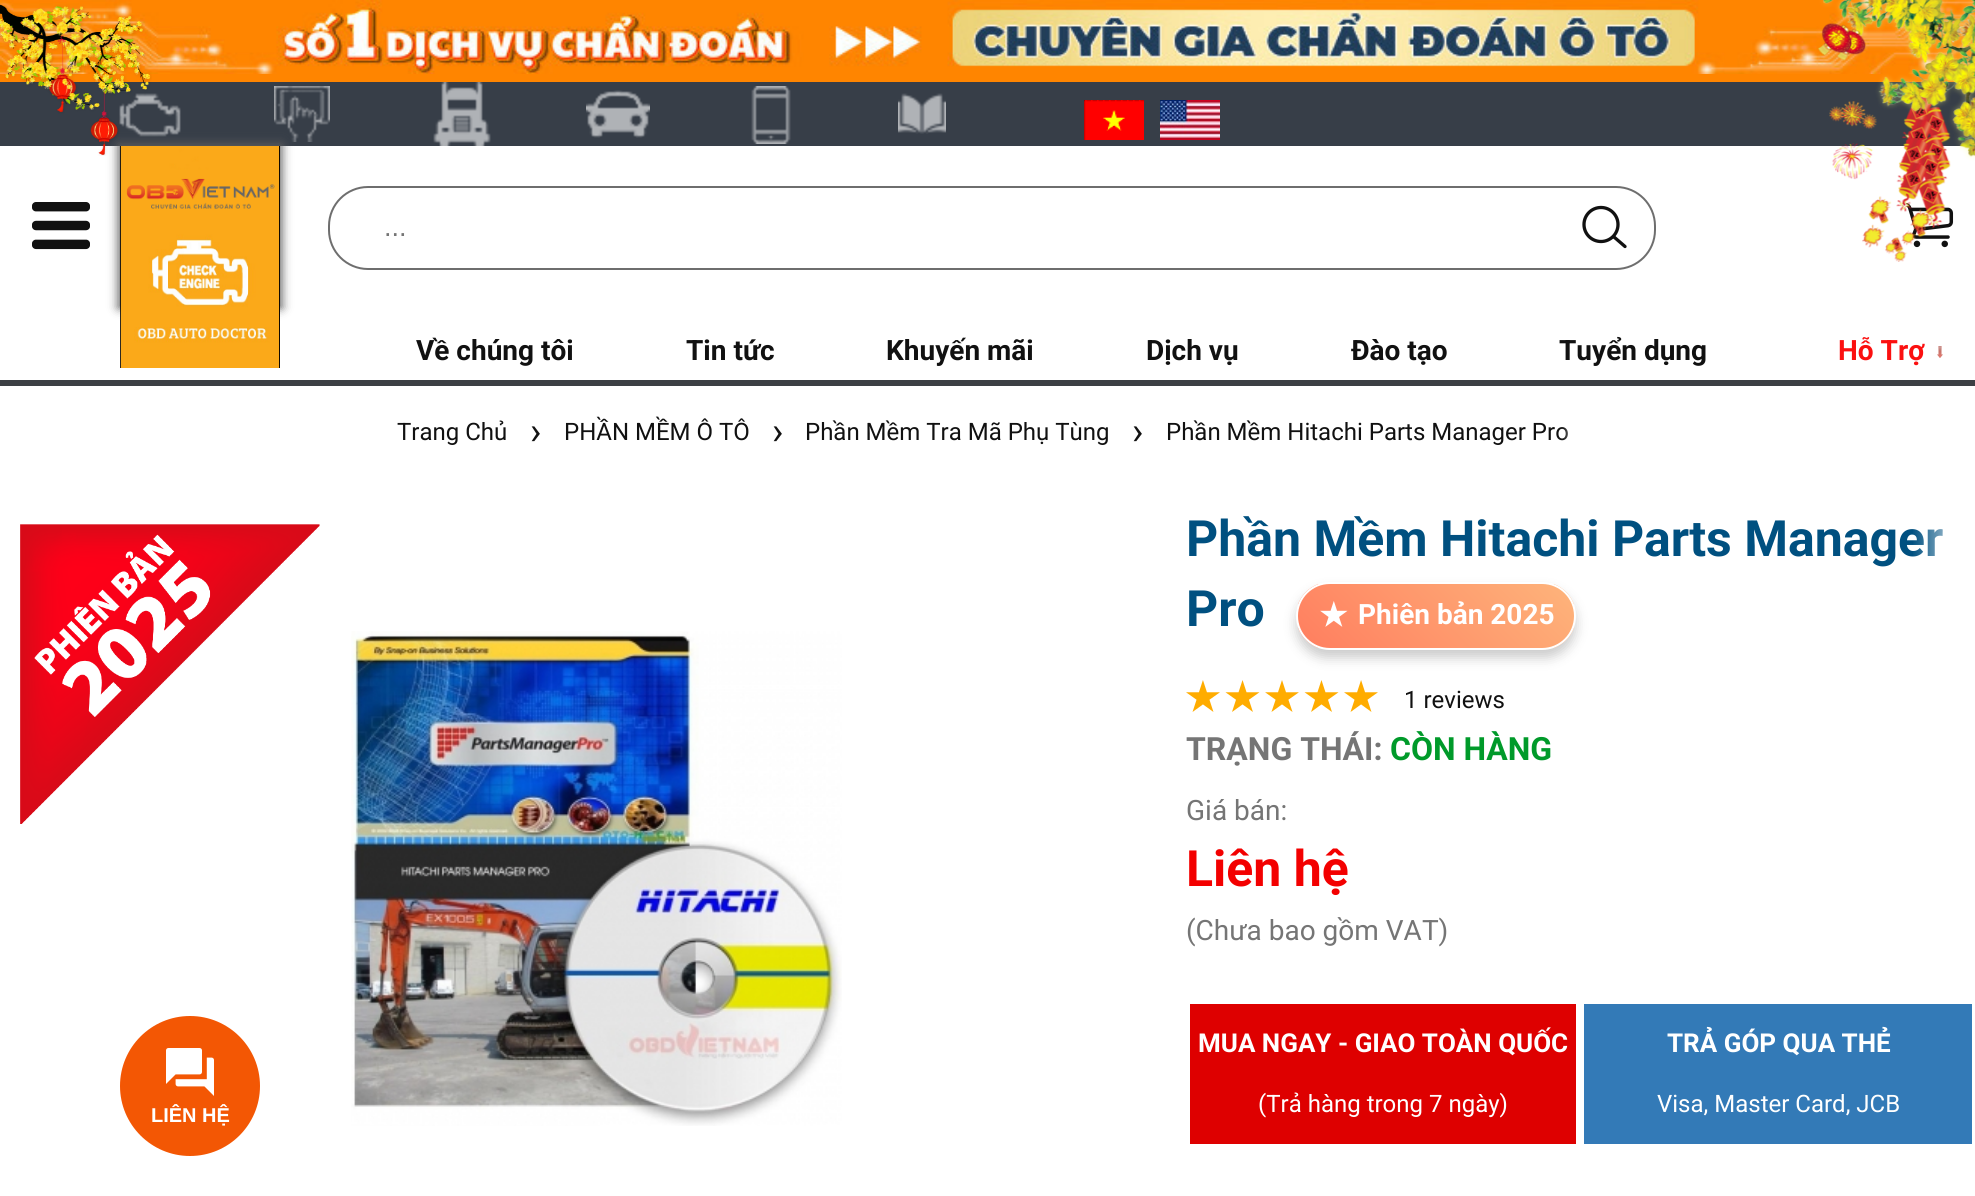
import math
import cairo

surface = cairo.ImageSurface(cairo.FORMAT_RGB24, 1975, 1196)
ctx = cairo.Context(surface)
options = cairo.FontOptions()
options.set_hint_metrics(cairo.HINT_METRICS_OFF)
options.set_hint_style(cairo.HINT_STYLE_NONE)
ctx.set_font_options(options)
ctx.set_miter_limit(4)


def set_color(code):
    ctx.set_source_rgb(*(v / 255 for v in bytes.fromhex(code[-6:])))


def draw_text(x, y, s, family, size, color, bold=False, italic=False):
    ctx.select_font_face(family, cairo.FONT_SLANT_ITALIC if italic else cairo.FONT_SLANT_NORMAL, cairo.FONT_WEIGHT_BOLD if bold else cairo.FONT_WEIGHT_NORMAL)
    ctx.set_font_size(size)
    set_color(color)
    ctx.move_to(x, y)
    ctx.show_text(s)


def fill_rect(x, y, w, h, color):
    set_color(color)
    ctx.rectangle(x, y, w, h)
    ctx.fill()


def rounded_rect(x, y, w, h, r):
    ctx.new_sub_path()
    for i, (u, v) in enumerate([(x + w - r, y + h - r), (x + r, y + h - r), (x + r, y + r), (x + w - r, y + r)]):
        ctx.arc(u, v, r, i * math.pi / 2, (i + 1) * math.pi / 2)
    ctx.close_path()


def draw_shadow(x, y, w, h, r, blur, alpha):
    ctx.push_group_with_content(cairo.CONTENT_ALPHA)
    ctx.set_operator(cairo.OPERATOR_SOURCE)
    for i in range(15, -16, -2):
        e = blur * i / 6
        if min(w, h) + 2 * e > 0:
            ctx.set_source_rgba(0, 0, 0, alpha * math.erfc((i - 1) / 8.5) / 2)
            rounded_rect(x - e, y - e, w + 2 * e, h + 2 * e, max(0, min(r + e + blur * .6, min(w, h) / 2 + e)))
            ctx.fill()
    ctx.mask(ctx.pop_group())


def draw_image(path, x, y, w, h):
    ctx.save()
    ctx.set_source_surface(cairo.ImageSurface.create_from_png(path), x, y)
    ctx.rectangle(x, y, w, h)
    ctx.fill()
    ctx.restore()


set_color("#ffffff")
ctx.paint()
fill_rect(0, 74, 1975, 8, "#ff8500")
draw_image("assets/img1.png", 0, 0, 1975, 74)
fill_rect(0, 82, 1975, 64, "#373e48")
draw_image("assets/img5.png", 119, 93, 62, 44)
draw_image("assets/img6.png", 274, 86, 56, 56)
set_color("#5f5f5f")
draw_shadow(118, 144, 164, 164, 0, 5, 1)
draw_image("assets/img14.png", 120, 146, 160, 222)
draw_image("assets/img2.png", 0, 3, 152, 153)
draw_image("assets/img15.png", 1902, 203, 52, 45)
draw_image("assets/img3.png", 1818, 0, 157, 262)
set_color("#f35704")
ctx.arc(190, 1086, 70, 0, 2 * math.pi)
ctx.fill()
draw_image("assets/img4.png", 166, 1048, 48, 48)
draw_text(151, 1122, "LIÊN HỆ", "Liberation Sans", 20, "#ffffff", bold=True)
draw_image("assets/img7.png", 433, 82, 58, 64)
draw_image("assets/img8.png", 586, 90, 64, 48)
draw_image("assets/img9.png", 751, 86, 40, 58)
draw_image("assets/img10.png", 898, 93, 48, 41)
draw_image("assets/img11.png", 1084, 100, 60, 40)
draw_image("assets/img12.png", 1160, 100, 60, 40)
draw_image("assets/img13.png", 32, 202, 58, 48)
rounded_rect(329, 187, 1326, 82, 39)
set_color("#6e6e6e")
ctx.stroke()
draw_text(384, 236, "...", "Liberation Sans", 27, "#757575")
ctx.new_path()
ctx.arc(1601, 224.5, 17, 0, 2 * math.pi)
set_color("#111111")
ctx.set_line_width(3.3)
ctx.stroke()
ctx.new_path()
ctx.move_to(1614, 237)
ctx.line_to(1625, 246.5)
ctx.set_line_cap(cairo.LINE_CAP_ROUND)
ctx.stroke()
fill_rect(0, 380, 1975, 6, "#3c4044")
draw_text(416, 360, "Về chúng tôi", "Roboto", 28, "#111111", bold=True)
draw_text(686, 360, "Tin tức", "Roboto", 28, "#111111", bold=True)
draw_text(886, 360, "Khuyến mãi", "Roboto", 28, "#111111", bold=True)
draw_text(1146, 360, "Dịch vụ", "Roboto", 28, "#111111", bold=True)
draw_text(1351, 360, "Đào tạo", "Roboto", 28, "#111111", bold=True)
draw_text(1559, 360, "Tuyển dụng", "Roboto", 28, "#111111", bold=True)
draw_text(1838, 360, "Hỗ Trợ", "Roboto", 28, "#fb1010", bold=True)
draw_image("assets/img16.png", 1937, 346, 6, 12)
draw_text(397, 440, "Trang Chủ", "Roboto", 24, "#111111")
draw_text(530, 444, "›", "Roboto", 38, "#111111")
draw_text(564, 440, "PHẦN MỀM Ô TÔ", "Roboto", 24, "#111111")
draw_text(772, 444, "›", "Roboto", 38, "#111111")
draw_text(805, 440, "Phần Mềm Tra Mã Phụ Tùng", "Roboto", 24, "#111111")
draw_text(1132, 444, "›", "Roboto", 38, "#111111")
draw_text(1166, 440, "Phần Mềm Hitachi Parts Manager Pro", "Roboto", 24, "#111111")
ctx.save()
ctx.rectangle(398, 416, 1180, 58)
ctx.clip()
set_color("#ffffff")
draw_shadow(1570, 408, 18, 74, 0, 4, 1)
ctx.restore()
draw_image("assets/img17.png", 20, 524, 300, 300)
draw_image("assets/img18.png", 351, 631, 491, 495)
draw_text(1186, 556, "Phần Mềm Hitachi Parts Manager", "Roboto", 50, "#005080", bold=True)
draw_text(1186, 626, "Pro", "Roboto", 50, "#005080", bold=True)
set_color("#000000")
draw_shadow(1296, 590, 280, 68, 34, 6, 0.2)
ctx.save()
rounded_rect(1296, 582, 280, 68, 34)
ctx.clip()
gradient = cairo.LinearGradient(1351, 701, 1521, 531)
gradient.add_color_stop_rgba(0, 1, 0.494, 0.373, 1)
gradient.add_color_stop_rgba(1, 0.996, 0.706, 0.482, 1)
ctx.set_source(gradient)
ctx.rectangle(1298, 584, 276, 64)
ctx.fill()
ctx.restore()
rounded_rect(1297, 583, 278, 66, 33)
set_color("#ffffff")
ctx.set_line_width(2)
ctx.set_line_cap(cairo.LINE_CAP_BUTT)
ctx.stroke()
draw_text(1319, 626, "★", "DejaVu Sans", 32, "#ffffff", bold=True)
draw_text(1358, 624, "Phiên bản 2025", "Roboto", 28, "#ffffff", bold=True)
draw_image("assets/img19.png", 1186, 680, 192, 32)
draw_text(1404, 708, "1 reviews", "Roboto", 24, "#111111")
draw_text(1186, 760, "TRẠNG THÁI:", "Roboto", 32, "#757575", bold=True)
draw_text(1390, 760, "CÒN HÀNG", "Roboto", 32, "#009a2a", bold=True)
draw_text(1186, 820, "Giá bán:", "Roboto", 28, "#757575")
draw_text(1186, 886, "Liên hệ", "Roboto", 50, "#f30000", bold=True)
draw_text(1186, 940, "(Chưa bao gồm VAT)", "Roboto", 28, "#757575")
fill_rect(1190, 1004, 386, 140, "#de0000")
draw_text(1198, 1052, "MUA NGAY - GIAO TOÀN QUỐC", "Roboto", 26, "#ffffff", bold=True)
draw_text(1258, 1112, "(Trả hàng trong 7 ngày)", "Roboto", 24, "#ffffff")
fill_rect(1584, 1004, 388, 140, "#337ab7")
draw_text(1667, 1052, "TRẢ GÓP QUA THẺ", "Roboto", 26, "#ffffff", bold=True)
draw_text(1657, 1112, "Visa, Master Card, JCB", "Roboto", 24, "#ffffff")
gradient = cairo.LinearGradient(1912, 564, 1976, 564)
gradient.add_color_stop_rgba(0, 1, 1, 1, 0)
gradient.add_color_stop_rgba(1, 1, 1, 1, 1)
ctx.set_source(gradient)
ctx.rectangle(1913, 529, 30, 28)
ctx.fill()
surface.write_to_png("output.png")
